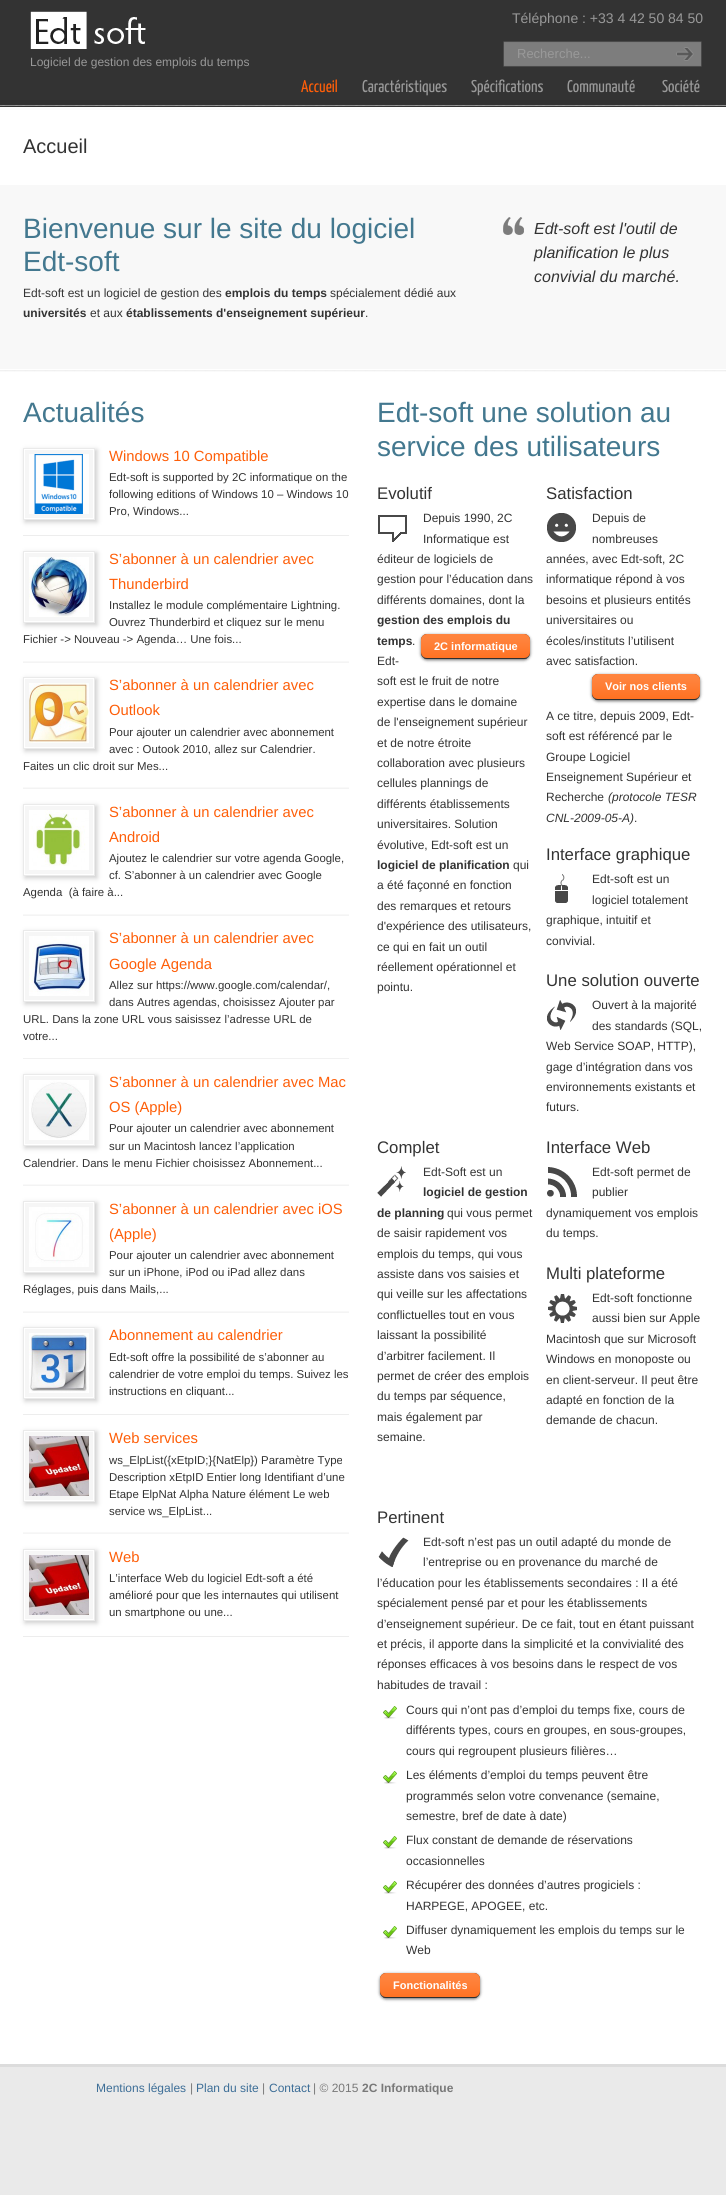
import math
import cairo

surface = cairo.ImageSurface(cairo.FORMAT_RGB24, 726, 2195)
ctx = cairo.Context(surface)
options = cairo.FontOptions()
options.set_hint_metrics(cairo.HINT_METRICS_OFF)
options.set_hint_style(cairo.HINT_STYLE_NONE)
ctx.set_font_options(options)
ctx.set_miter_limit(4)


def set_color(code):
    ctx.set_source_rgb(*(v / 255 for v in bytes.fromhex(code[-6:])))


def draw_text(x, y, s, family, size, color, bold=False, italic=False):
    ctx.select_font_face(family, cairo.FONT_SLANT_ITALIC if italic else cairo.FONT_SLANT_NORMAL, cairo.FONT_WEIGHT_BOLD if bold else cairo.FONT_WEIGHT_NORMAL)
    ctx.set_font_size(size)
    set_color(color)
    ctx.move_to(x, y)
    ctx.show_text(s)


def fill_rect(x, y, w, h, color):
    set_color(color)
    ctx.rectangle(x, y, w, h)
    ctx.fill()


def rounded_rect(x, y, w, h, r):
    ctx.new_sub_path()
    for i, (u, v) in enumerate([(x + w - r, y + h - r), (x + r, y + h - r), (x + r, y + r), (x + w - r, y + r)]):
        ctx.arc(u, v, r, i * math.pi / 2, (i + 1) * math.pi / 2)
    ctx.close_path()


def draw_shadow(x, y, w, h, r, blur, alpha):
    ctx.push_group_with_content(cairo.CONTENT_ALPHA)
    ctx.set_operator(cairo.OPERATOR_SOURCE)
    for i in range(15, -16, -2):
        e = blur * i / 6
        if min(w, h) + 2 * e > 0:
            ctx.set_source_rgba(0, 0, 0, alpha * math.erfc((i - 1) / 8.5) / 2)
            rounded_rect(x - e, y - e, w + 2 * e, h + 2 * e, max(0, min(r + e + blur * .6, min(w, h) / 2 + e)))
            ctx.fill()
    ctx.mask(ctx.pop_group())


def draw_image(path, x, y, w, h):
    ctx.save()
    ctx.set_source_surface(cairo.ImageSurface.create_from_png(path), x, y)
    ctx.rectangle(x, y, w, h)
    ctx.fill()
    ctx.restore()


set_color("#eaeaea")
ctx.paint()
fill_rect(0, 0, 726, 107, "#333333")
draw_image("assets/img1.png", 30, 11, 116, 38)
draw_text(512, 23, "Téléphone : +33 4 42 50 84 50", "Liberation Sans", 14, "#999999")
draw_image("assets/img2.png", 503, 41, 159, 26)
draw_text(517, 58, "Recherche...", "Liberation Sans", 13, "#999999")
draw_image("assets/img3.png", 662, 41, 40, 26)
draw_text(30, 66, "Logiciel de gestion des emplois du temps", "Liberation Sans", 12, "#999999")
draw_text(301, 92, "Accueil", "Yanone Kaffeesatz ExtraLight", 17, "#fe5e08")
draw_text(362, 92, "Caractéristiques", "Yanone Kaffeesatz ExtraLight", 17, "#999999")
draw_text(471, 92, "Spécifications", "Yanone Kaffeesatz ExtraLight", 17, "#999999")
draw_text(567, 92, "Communauté", "Yanone Kaffeesatz ExtraLight", 17, "#999999")
draw_text(662, 92, "Société", "Yanone Kaffeesatz ExtraLight", 17, "#999999")
draw_image("assets/img4.png", 0, 105, 726, 1)
fill_rect(0, 107, 726, 78, "#ffffff")
draw_text(23, 153, "Accueil", "Liberation Sans", 20, "#333333")
fill_rect(0, 185, 726, 184, "#f8f8f8")
draw_text(23, 238, "Bienvenue sur le site du logiciel", "Liberation Sans", 28, "#43788f")
draw_text(23, 271, "Edt-soft", "Liberation Sans", 28, "#43788f")
draw_text(23, 297, "Edt-soft est un logiciel de gestion des", "Liberation Sans", 12, "#333333")
draw_text(225, 297, "emplois du temps", "Liberation Sans", 12, "#333333", bold=True)
draw_text(330, 297, "spécialement dédié aux", "Liberation Sans", 12, "#333333")
draw_text(23, 317, "universités", "Liberation Sans", 12, "#333333", bold=True)
draw_text(90, 317, "et aux", "Liberation Sans", 12, "#333333")
draw_text(126, 317, "établissements d'enseignement supérieur", "Liberation Sans", 12, "#333333", bold=True)
draw_text(365, 317, ".", "Liberation Sans", 12, "#333333")
draw_image("assets/img5.png", 503, 217, 21, 18)
draw_text(534, 234, "Edt-soft est l'outil de", "Liberation Sans", 16, "#333333", italic=True)
draw_text(534, 258, "planification le plus", "Liberation Sans", 16, "#333333", italic=True)
draw_text(534, 282, "convivial du marché.", "Liberation Sans", 16, "#333333", italic=True)
fill_rect(0, 369, 726, 1695, "#ffffff")
draw_image("assets/img6.png", 0, 370, 726, 2)
draw_text(23, 422, "Actualités", "Liberation Sans", 28, "#43788f")
fill_rect(23, 535, 326, 1, "#ededed")
set_color("#cccccc")
draw_shadow(25, 450, 72, 72, 0, 2.5, 1)
fill_rect(25, 450, 68, 68, "#f6f6f6")
ctx.rectangle(23.5, 448.5, 71, 71)
set_color("#eaeaea")
ctx.set_line_width(1)
ctx.stroke()
ctx.rectangle(24.5, 449.5, 69, 69)
set_color("#ffffff")
ctx.stroke()
draw_image("assets/img7.png", 29, 454, 60, 60)
draw_text(109, 461, "Windows 10 Compatible", "Liberation Sans", 14.8, "#fe5e08")
draw_text(109, 481, "Edt-soft is supported by 2C informatique on the", "Liberation Sans", 11.4, "#333333")
draw_text(109, 498, "following editions of Windows 10 – Windows 10", "Liberation Sans", 11.4, "#333333")
draw_text(109, 515, "Pro, Windows...", "Liberation Sans", 11.4, "#333333")
draw_image("assets/img8.png", 23, 661, 326, 2)
set_color("#cccccc")
draw_shadow(25, 553, 72, 72, 0, 2.5, 1)
fill_rect(25, 553, 68, 68, "#f6f6f6")
ctx.rectangle(23.5, 551.5, 71, 71)
set_color("#eaeaea")
ctx.stroke()
ctx.rectangle(24.5, 552.5, 69, 69)
set_color("#ffffff")
ctx.stroke()
draw_image("assets/img9.png", 29, 557, 60, 60)
draw_text(109, 564, "S’abonner à un calendrier avec", "Liberation Sans", 14.8, "#fe5e08")
draw_text(109, 589, "Thunderbird", "Liberation Sans", 14.8, "#fe5e08")
draw_text(109, 609, "Installez le module complémentaire Lightning.", "Liberation Sans", 11.4, "#333333")
draw_text(109, 626, "Ouvrez Thunderbird et cliquez sur le menu", "Liberation Sans", 11.4, "#333333")
draw_text(23, 643, "Fichier -> Nouveau -> Agenda… Une fois...", "Liberation Sans", 11.4, "#333333")
draw_image("assets/img10.png", 23, 787, 326, 2)
set_color("#cccccc")
draw_shadow(25, 679, 72, 72, 0, 2.5, 1)
fill_rect(25, 679, 68, 68, "#f6f6f6")
ctx.rectangle(23.5, 677.5, 71, 71)
set_color("#eaeaea")
ctx.stroke()
ctx.rectangle(24.5, 678.5, 69, 69)
set_color("#ffffff")
ctx.stroke()
draw_image("assets/img11.png", 29, 683, 60, 60)
draw_text(109, 690, "S’abonner à un calendrier avec", "Liberation Sans", 14.8, "#fe5e08")
draw_text(109, 715, "Outlook", "Liberation Sans", 14.8, "#fe5e08")
draw_text(109, 736, "Pour ajouter un calendrier avec abonnement", "Liberation Sans", 11.4, "#333333")
draw_text(109, 753, "avec : Outook 2010, allez sur Calendrier.", "Liberation Sans", 11.4, "#333333")
draw_text(23, 770, "Faites un clic droit sur Mes...", "Liberation Sans", 11.4, "#333333")
draw_image("assets/img8.png", 23, 914, 326, 2)
set_color("#cccccc")
draw_shadow(25, 806, 72, 72, 0, 2.5, 1)
fill_rect(25, 806, 68, 68, "#f6f6f6")
ctx.rectangle(23.5, 804.5, 71, 71)
set_color("#eaeaea")
ctx.stroke()
ctx.rectangle(24.5, 805.5, 69, 69)
set_color("#ffffff")
ctx.stroke()
draw_image("assets/img12.png", 29, 810, 60, 60)
draw_text(109, 817, "S’abonner à un calendrier avec", "Liberation Sans", 14.8, "#fe5e08")
draw_text(109, 842, "Android", "Liberation Sans", 14.8, "#fe5e08")
draw_text(109, 862, "Ajoutez le calendrier sur votre agenda Google,", "Liberation Sans", 11.4, "#333333")
draw_text(109, 879, "cf. S’abonner à un calendrier avec Google", "Liberation Sans", 11.4, "#333333")
draw_text(23, 896, "Agenda  (à faire à...", "Liberation Sans", 11.4, "#333333")
fill_rect(23, 1058, 326, 1, "#f1f1f1")
set_color("#cccccc")
draw_shadow(25, 932, 72, 72, 0, 2.5, 1)
fill_rect(25, 932, 68, 68, "#f6f6f6")
ctx.rectangle(23.5, 930.5, 71, 71)
set_color("#eaeaea")
ctx.stroke()
ctx.rectangle(24.5, 931.5, 69, 69)
set_color("#ffffff")
ctx.stroke()
draw_image("assets/img13.png", 29, 936, 60, 60)
draw_text(109, 943, "S’abonner à un calendrier avec", "Liberation Sans", 14.8, "#fe5e08")
draw_text(109, 969, "Google Agenda", "Liberation Sans", 14.8, "#fe5e08")
draw_text(109, 989, "Allez sur https://www.google.com/calendar/,", "Liberation Sans", 11.4, "#333333")
draw_text(109, 1006, "dans Autres agendas, choisissez Ajouter par", "Liberation Sans", 11.4, "#333333")
draw_text(23, 1023, "URL. Dans la zone URL vous saisissez l’adresse URL de", "Liberation Sans", 11.4, "#333333")
draw_text(23, 1040, "votre...", "Liberation Sans", 11.4, "#333333")
draw_image("assets/img10.png", 23, 1184, 326, 2)
set_color("#cccccc")
draw_shadow(25, 1076, 72, 72, 0, 2.5, 1)
fill_rect(25, 1076, 68, 68, "#f6f6f6")
ctx.rectangle(23.5, 1074.5, 71, 71)
set_color("#eaeaea")
ctx.stroke()
ctx.rectangle(24.5, 1075.5, 69, 69)
set_color("#ffffff")
ctx.stroke()
draw_image("assets/img14.png", 29, 1080, 60, 60)
draw_text(109, 1087, "S’abonner à un calendrier avec Mac", "Liberation Sans", 14.8, "#fe5e08")
draw_text(109, 1112, "OS (Apple)", "Liberation Sans", 14.8, "#fe5e08")
draw_text(109, 1132, "Pour ajouter un calendrier avec abonnement", "Liberation Sans", 11.4, "#333333")
draw_text(109, 1150, "sur un Macintosh lancez l’application", "Liberation Sans", 11.4, "#333333")
draw_text(23, 1167, "Calendrier. Dans le menu Fichier choisissez Abonnement...", "Liberation Sans", 11.4, "#333333")
draw_image("assets/img8.png", 23, 1311, 326, 2)
set_color("#cccccc")
draw_shadow(25, 1203, 72, 72, 0, 2.5, 1)
fill_rect(25, 1203, 68, 68, "#f6f6f6")
ctx.rectangle(23.5, 1201.5, 71, 71)
set_color("#eaeaea")
ctx.stroke()
ctx.rectangle(24.5, 1202.5, 69, 69)
set_color("#ffffff")
ctx.stroke()
draw_image("assets/img15.png", 29, 1207, 60, 60)
draw_text(109, 1214, "S’abonner à un calendrier avec iOS", "Liberation Sans", 14.8, "#fe5e08")
draw_text(109, 1239, "(Apple)", "Liberation Sans", 14.8, "#fe5e08")
draw_text(109, 1259, "Pour ajouter un calendrier avec abonnement", "Liberation Sans", 11.4, "#333333")
draw_text(109, 1276, "sur un iPhone, iPod ou iPad allez dans", "Liberation Sans", 11.4, "#333333")
draw_text(23, 1293, "Réglages, puis dans Mails,...", "Liberation Sans", 11.4, "#333333")
fill_rect(23, 1414, 326, 1, "#ededed")
set_color("#cccccc")
draw_shadow(25, 1329, 72, 72, 0, 2.5, 1)
fill_rect(25, 1329, 68, 68, "#f6f6f6")
ctx.rectangle(23.5, 1327.5, 71, 71)
set_color("#eaeaea")
ctx.stroke()
ctx.rectangle(24.5, 1328.5, 69, 69)
set_color("#ffffff")
ctx.stroke()
draw_image("assets/img16.png", 29, 1333, 60, 60)
draw_text(109, 1340, "Abonnement au calendrier", "Liberation Sans", 14.8, "#fe5e08")
draw_text(109, 1361, "Edt-soft offre la possibilité de s’abonner au", "Liberation Sans", 11.4, "#333333")
draw_text(109, 1378, "calendrier de votre emploi du temps. Suivez les", "Liberation Sans", 11.4, "#333333")
draw_text(109, 1395, "instructions en cliquant...", "Liberation Sans", 11.4, "#333333")
draw_image("assets/img17.png", 23, 1532, 326, 2)
set_color("#cccccc")
draw_shadow(25, 1432, 72, 72, 0, 2.5, 1)
fill_rect(25, 1432, 68, 68, "#f6f6f6")
ctx.rectangle(23.5, 1430.5, 71, 71)
set_color("#eaeaea")
ctx.stroke()
ctx.rectangle(24.5, 1431.5, 69, 69)
set_color("#ffffff")
ctx.stroke()
draw_image("assets/img18.png", 29, 1436, 60, 60)
draw_text(109, 1443, "Web services", "Liberation Sans", 14.8, "#fe5e08")
draw_text(109, 1464, "ws_ElpList({xEtpID;}{NatElp}) Paramètre Type", "Liberation Sans", 11.4, "#333333")
draw_text(109, 1481, "Description xEtpID Entier long Identifiant d’une", "Liberation Sans", 11.4, "#333333")
draw_text(109, 1498, "Etape ElpNat Alpha Nature élément Le web", "Liberation Sans", 11.4, "#333333")
draw_text(109, 1515, "service ws_ElpList...", "Liberation Sans", 11.4, "#333333")
fill_rect(23, 1636, 326, 1, "#ededed")
set_color("#cccccc")
draw_shadow(25, 1551, 72, 72, 0, 2.5, 1)
fill_rect(25, 1551, 68, 68, "#f6f6f6")
ctx.rectangle(23.5, 1549.5, 71, 71)
set_color("#eaeaea")
ctx.stroke()
ctx.rectangle(24.5, 1550.5, 69, 69)
set_color("#ffffff")
ctx.stroke()
draw_image("assets/img18.png", 29, 1555, 60, 60)
draw_text(109, 1562, "Web", "Liberation Sans", 14.8, "#fe5e08")
draw_text(109, 1582, "L’interface Web du logiciel Edt-soft a été", "Liberation Sans", 11.4, "#333333")
draw_text(109, 1599, "amélioré pour que les internautes qui utilisent", "Liberation Sans", 11.4, "#333333")
draw_text(109, 1616, "un smartphone ou une...", "Liberation Sans", 11.4, "#333333")
draw_text(377, 422, "Edt-soft une solution au", "Liberation Sans", 28, "#43788f")
draw_text(377, 456, "service des utilisateurs", "Liberation Sans", 28, "#43788f")
draw_text(377, 499, "Evolutif", "Liberation Sans", 16.75, "#333333")
draw_image("assets/img19.png", 378, 515, 29, 27)
draw_text(423, 522, "Depuis 1990, 2C", "Liberation Sans", 12, "#333333")
draw_text(423, 543, "Informatique est", "Liberation Sans", 12, "#333333")
draw_text(377, 563, "éditeur de logiciels de", "Liberation Sans", 12, "#333333")
draw_text(377, 583, "gestion pour l’éducation dans", "Liberation Sans", 12, "#333333")
draw_text(377, 604, "différents domaines, dont la", "Liberation Sans", 12, "#333333")
draw_text(377, 624, "gestion des emplois du", "Liberation Sans", 12, "#333333", bold=True)
draw_text(377, 645, "temps", "Liberation Sans", 12, "#333333", bold=True)
draw_text(412, 645, ".", "Liberation Sans", 12, "#333333")
set_color("#000000")
draw_shadow(421, 635, 109, 25, 6, 1.5, 0.6)
set_color("#222222")
rounded_rect(421, 634, 109, 25, 6)
ctx.fill()
draw_image("assets/img20.png", 421, 634, 109, 25)
ctx.set_source_rgba(0, 0, 0, 0.25)
ctx.rectangle(424, 658, 103, 1)
ctx.fill()
set_color("#ff5c00")
rounded_rect(421, 634, 109, 24, 6)
ctx.fill()
draw_image("assets/img21.png", 421, 634, 109, 24)
draw_text(434, 650, "2C informatique", "Liberation Sans", 11, "#ffffff", bold=True)
draw_text(377, 665, "Edt-", "Liberation Sans", 12, "#333333")
draw_text(377, 685, "soft est le fruit de notre", "Liberation Sans", 12, "#333333")
draw_text(377, 706, "expertise dans le domaine", "Liberation Sans", 12, "#333333")
draw_text(377, 726, "de l'enseignement supérieur", "Liberation Sans", 12, "#333333")
draw_text(377, 747, "et de notre étroite", "Liberation Sans", 12, "#333333")
draw_text(377, 767, "collaboration avec plusieurs", "Liberation Sans", 12, "#333333")
draw_text(377, 787, "cellules plannings de", "Liberation Sans", 12, "#333333")
draw_text(377, 808, "différents établissements", "Liberation Sans", 12, "#333333")
draw_text(377, 828, "universitaires. Solution", "Liberation Sans", 12, "#333333")
draw_text(377, 849, "évolutive, Edt-soft est un", "Liberation Sans", 12, "#333333")
draw_text(377, 869, "logiciel de planification", "Liberation Sans", 12, "#333333", bold=True)
draw_text(513, 869, "qui", "Liberation Sans", 12, "#333333")
draw_text(377, 889, "a été façonné en fonction", "Liberation Sans", 12, "#333333")
draw_text(377, 910, "des remarques et retours", "Liberation Sans", 12, "#333333")
draw_text(377, 930, "d'expérience des utilisateurs,", "Liberation Sans", 12, "#333333")
draw_text(377, 951, "ce qui en fait un outil", "Liberation Sans", 12, "#333333")
draw_text(377, 971, "réellement opérationnel et", "Liberation Sans", 12, "#333333")
draw_text(377, 991, "pointu.", "Liberation Sans", 12, "#333333")
draw_text(546, 499, "Satisfaction", "Liberation Sans", 16.75, "#333333")
draw_image("assets/img22.png", 547, 513, 29, 29)
draw_text(592, 522, "Depuis de", "Liberation Sans", 12, "#333333")
draw_text(592, 543, "nombreuses", "Liberation Sans", 12, "#333333")
draw_text(546, 563, "années, avec Edt-soft, 2C", "Liberation Sans", 12, "#333333")
draw_text(546, 583, "informatique répond à vos", "Liberation Sans", 12, "#333333")
draw_text(546, 604, "besoins et plusieurs entités", "Liberation Sans", 12, "#333333")
draw_text(546, 624, "universitaires ou", "Liberation Sans", 12, "#333333")
draw_text(546, 645, "écoles/instituts l’utilisent", "Liberation Sans", 12, "#333333")
draw_text(546, 665, "avec satisfaction.", "Liberation Sans", 12, "#333333")
set_color("#000000")
draw_shadow(592, 675, 108, 26, 6, 1.5, 0.6)
set_color("#222222")
rounded_rect(592, 674, 108, 26, 6)
ctx.fill()
draw_image("assets/img23.png", 592, 674, 108, 26)
ctx.set_source_rgba(0, 0, 0, 0.25)
ctx.rectangle(595, 699, 102, 1)
ctx.fill()
set_color("#ff5c00")
rounded_rect(592, 674, 108, 25, 6)
ctx.fill()
draw_image("assets/img24.png", 592, 674, 108, 25)
draw_text(605, 690, "Voir nos clients", "Liberation Sans", 11, "#ffffff", bold=True)
draw_text(546, 720, "A ce titre, depuis 2009, Edt-", "Liberation Sans", 12, "#333333")
draw_text(546, 740, "soft est référencé par le", "Liberation Sans", 12, "#333333")
draw_text(546, 761, "Groupe Logiciel", "Liberation Sans", 12, "#333333")
draw_text(546, 781, "Enseignement Supérieur et", "Liberation Sans", 12, "#333333")
draw_text(546, 801, "Recherche", "Liberation Sans", 12, "#333333")
draw_text(608, 801, "(protocole TESR", "Liberation Sans", 12, "#333333", italic=True)
draw_text(546, 822, "CNL-2009-05-A)", "Liberation Sans", 12, "#333333", italic=True)
draw_text(634, 822, ".", "Liberation Sans", 12, "#333333")
draw_text(546, 860, "Interface graphique", "Liberation Sans", 16.75, "#333333")
draw_image("assets/img25.png", 555, 874, 13, 29)
draw_text(592, 883, "Edt-soft est un", "Liberation Sans", 12, "#333333")
draw_text(592, 904, "logiciel totalement", "Liberation Sans", 12, "#333333")
draw_text(546, 924, "graphique, intuitif et", "Liberation Sans", 12, "#333333")
draw_text(546, 945, "convivial.", "Liberation Sans", 12, "#333333")
draw_text(546, 986, "Une solution ouverte", "Liberation Sans", 16.75, "#333333")
draw_image("assets/img26.png", 547, 1000, 29, 30)
draw_text(592, 1009, "Ouvert à la majorité", "Liberation Sans", 12, "#333333")
draw_text(592, 1030, "des standards (SQL,", "Liberation Sans", 12, "#333333")
draw_text(546, 1050, "Web Service SOAP, HTTP),", "Liberation Sans", 12, "#333333")
draw_text(546, 1071, "gage d’intégration dans vos", "Liberation Sans", 12, "#333333")
draw_text(546, 1091, "environnements existants et", "Liberation Sans", 12, "#333333")
draw_text(546, 1111, "futurs.", "Liberation Sans", 12, "#333333")
draw_text(377, 1153, "Complet", "Liberation Sans", 16.75, "#333333")
draw_image("assets/img27.png", 377, 1166, 29, 31)
draw_text(423, 1176, "Edt-Soft est un", "Liberation Sans", 12, "#333333")
draw_text(423, 1196, "logiciel de gestion", "Liberation Sans", 12, "#333333", bold=True)
draw_text(377, 1217, "de planning", "Liberation Sans", 12, "#333333", bold=True)
draw_text(447, 1217, "qui vous permet", "Liberation Sans", 12, "#333333")
draw_text(377, 1237, "de saisir rapidement vos", "Liberation Sans", 12, "#333333")
draw_text(377, 1258, "emplois du temps, qui vous", "Liberation Sans", 12, "#333333")
draw_text(377, 1278, "assiste dans vos saisies et", "Liberation Sans", 12, "#333333")
draw_text(377, 1298, "qui veille sur les affectations", "Liberation Sans", 12, "#333333")
draw_text(377, 1319, "conflictuelles tout en vous", "Liberation Sans", 12, "#333333")
draw_text(377, 1339, "laissant la possibilité", "Liberation Sans", 12, "#333333")
draw_text(377, 1360, "d’arbitrer facilement. Il", "Liberation Sans", 12, "#333333")
draw_text(377, 1380, "permet de créer des emplois", "Liberation Sans", 12, "#333333")
draw_text(377, 1400, "du temps par séquence,", "Liberation Sans", 12, "#333333")
draw_text(377, 1421, "mais également par", "Liberation Sans", 12, "#333333")
draw_text(377, 1441, "semaine.", "Liberation Sans", 12, "#333333")
draw_text(546, 1153, "Interface Web", "Liberation Sans", 16.75, "#333333")
draw_image("assets/img28.png", 547, 1167, 30, 30)
draw_text(592, 1176, "Edt-soft permet de", "Liberation Sans", 12, "#333333")
draw_text(592, 1196, "publier", "Liberation Sans", 12, "#333333")
draw_text(546, 1217, "dynamiquement vos emplois", "Liberation Sans", 12, "#333333")
draw_text(546, 1237, "du temps.", "Liberation Sans", 12, "#333333")
draw_text(546, 1279, "Multi plateforme", "Liberation Sans", 16.75, "#333333")
draw_image("assets/img29.png", 548, 1294, 29, 29)
draw_text(592, 1302, "Edt-soft fonctionne", "Liberation Sans", 12, "#333333")
draw_text(592, 1322, "aussi bien sur Apple", "Liberation Sans", 12, "#333333")
draw_text(546, 1343, "Macintosh que sur Microsoft", "Liberation Sans", 12, "#333333")
draw_text(546, 1363, "Windows en monoposte ou", "Liberation Sans", 12, "#333333")
draw_text(546, 1384, "en client-serveur. Il peut être", "Liberation Sans", 12, "#333333")
draw_text(546, 1404, "adapté en fonction de la", "Liberation Sans", 12, "#333333")
draw_text(546, 1424, "demande de chacun.", "Liberation Sans", 12, "#333333")
draw_text(377, 1523, "Pertinent", "Liberation Sans", 16.75, "#333333")
draw_image("assets/img30.png", 378, 1537, 31, 30)
draw_text(423, 1546, "Edt-soft n’est pas un outil adapté du monde de", "Liberation Sans", 12, "#333333")
draw_text(423, 1566, "l’entreprise ou en provenance du marché de", "Liberation Sans", 12, "#333333")
draw_text(377, 1587, "l’éducation pour les établissements secondaires : Il a été", "Liberation Sans", 12, "#333333")
draw_text(377, 1607, "spécialement pensé par et pour les établissements", "Liberation Sans", 12, "#333333")
draw_text(377, 1628, "d’enseignement supérieur. De ce fait, tout en étant puissant", "Liberation Sans", 12, "#333333")
draw_text(377, 1648, "et précis, il apporte dans la simplicité et la convivialité des", "Liberation Sans", 12, "#333333")
draw_text(377, 1668, "réponses efficaces à vos besoins dans le respect de vos", "Liberation Sans", 12, "#333333")
draw_text(377, 1689, "habitudes de travail :", "Liberation Sans", 12, "#333333")
draw_image("assets/img31.png", 383, 1706, 14, 13)
draw_text(406, 1714, "Cours qui n’ont pas d’emploi du temps fixe, cours de", "Liberation Sans", 12, "#333333")
draw_text(406, 1734, "différents types, cours en groupes, en sous-groupes,", "Liberation Sans", 12, "#333333")
draw_text(406, 1755, "cours qui regroupent plusieurs filières…", "Liberation Sans", 12, "#333333")
draw_image("assets/img31.png", 383, 1771, 14, 13)
draw_text(406, 1779, "Les éléments d’emploi du temps peuvent être", "Liberation Sans", 12, "#333333")
draw_text(406, 1800, "programmés selon votre convenance (semaine,", "Liberation Sans", 12, "#333333")
draw_text(406, 1820, "semestre, bref de date à date)", "Liberation Sans", 12, "#333333")
draw_image("assets/img31.png", 383, 1836, 14, 13)
draw_text(406, 1844, "Flux constant de demande de réservations", "Liberation Sans", 12, "#333333")
draw_text(406, 1865, "occasionnelles", "Liberation Sans", 12, "#333333")
draw_image("assets/img31.png", 383, 1881, 14, 13)
draw_text(406, 1889, "Récupérer des données d’autres progiciels :", "Liberation Sans", 12, "#333333")
draw_text(406, 1910, "HARPEGE, APOGEE, etc.", "Liberation Sans", 12, "#333333")
draw_image("assets/img31.png", 383, 1926, 14, 13)
draw_text(406, 1934, "Diffuser dynamiquement les emplois du temps sur le", "Liberation Sans", 12, "#333333")
draw_text(406, 1954, "Web", "Liberation Sans", 12, "#333333")
set_color("#000000")
draw_shadow(380, 1974, 100, 25, 6, 1.5, 0.6)
set_color("#222222")
rounded_rect(380, 1973, 100, 25, 6)
ctx.fill()
draw_image("assets/img32.png", 380, 1973, 100, 25)
ctx.set_source_rgba(0, 0, 0, 0.25)
ctx.rectangle(383, 1997, 94, 1)
ctx.fill()
set_color("#ff5c00")
rounded_rect(380, 1973, 100, 24, 6)
ctx.fill()
draw_image("assets/img33.png", 380, 1973, 100, 24)
draw_text(393, 1989, "Fonctionalités", "Liberation Sans", 11, "#ffffff", bold=True)
fill_rect(0, 2064, 726, 3, "#dcdcdc")
draw_text(96, 2092, "Mentions légales", "Liberation Sans", 12, "#3d6e97")
draw_text(190, 2092, "|", "Liberation Sans", 12, "#797979")
draw_text(196, 2092, "Plan du site", "Liberation Sans", 12, "#3d6e97")
draw_text(262, 2092, "|", "Liberation Sans", 12, "#797979")
draw_text(269, 2092, "Contact", "Liberation Sans", 12, "#3d6e97")
draw_text(313, 2092, "| © 2015", "Liberation Sans", 12, "#797979")
draw_text(362, 2092, "2C Informatique", "Liberation Sans", 12, "#797979", bold=True)
surface.write_to_png("output.png")
